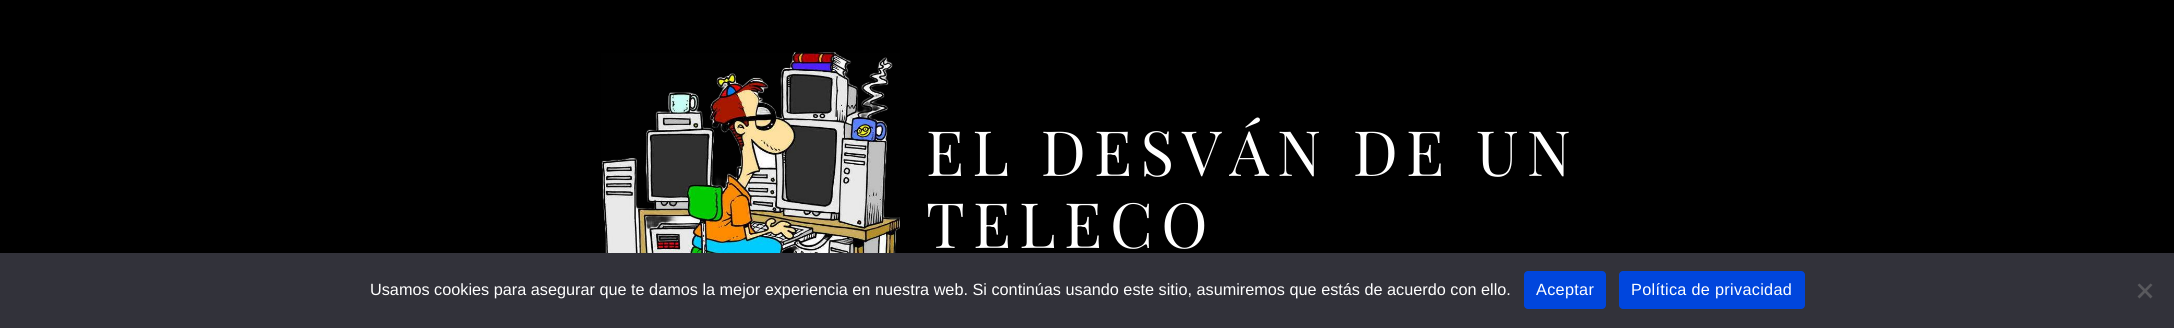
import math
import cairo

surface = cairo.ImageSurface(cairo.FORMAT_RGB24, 2174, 328)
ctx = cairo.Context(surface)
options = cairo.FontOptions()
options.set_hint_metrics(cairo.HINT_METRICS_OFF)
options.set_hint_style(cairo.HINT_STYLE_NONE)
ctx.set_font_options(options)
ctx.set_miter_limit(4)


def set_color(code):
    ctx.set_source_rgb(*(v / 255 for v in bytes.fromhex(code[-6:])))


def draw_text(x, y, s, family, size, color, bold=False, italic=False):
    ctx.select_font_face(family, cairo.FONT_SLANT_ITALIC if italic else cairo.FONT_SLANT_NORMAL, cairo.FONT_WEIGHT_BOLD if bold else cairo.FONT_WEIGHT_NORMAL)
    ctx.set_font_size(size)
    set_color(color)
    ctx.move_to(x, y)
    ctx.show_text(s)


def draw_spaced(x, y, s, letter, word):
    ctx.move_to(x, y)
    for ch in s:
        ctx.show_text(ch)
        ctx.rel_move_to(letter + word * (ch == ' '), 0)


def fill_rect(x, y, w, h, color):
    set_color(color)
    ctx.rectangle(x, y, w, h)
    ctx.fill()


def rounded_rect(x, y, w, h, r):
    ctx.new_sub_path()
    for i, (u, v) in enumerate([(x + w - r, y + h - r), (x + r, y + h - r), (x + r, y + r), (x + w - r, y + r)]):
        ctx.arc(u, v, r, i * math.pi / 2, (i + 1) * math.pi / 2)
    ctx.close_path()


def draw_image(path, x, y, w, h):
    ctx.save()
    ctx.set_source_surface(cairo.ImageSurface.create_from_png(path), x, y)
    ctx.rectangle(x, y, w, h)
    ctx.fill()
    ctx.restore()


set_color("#000000")
ctx.paint()
draw_image("assets/img1.png", 601, 52, 299, 201)
ctx.select_font_face("Playfair Display")
ctx.set_font_size(62.5)
set_color("#ffffff")
draw_spaced(926, 176, "EL DESVÁN DE UN", 8.1, 0)
draw_spaced(926, 248, "TELECO", 8.1, 0)
fill_rect(0, 253, 2174, 75, "#32323a")
draw_text(370, 295, "Usamos cookies para asegurar que te damos la mejor experiencia en nuestra web. Si continúas usando este sitio, asumiremos que estás de acuerdo con ello.", "Liberation Sans", 16.25, "#ffffff")
set_color("#0046dd")
rounded_rect(1524, 271, 82, 38, 4)
ctx.fill()
set_color("#ffffff")
draw_spaced(1536, 295, "Aceptar", 0.3, 0)
set_color("#0046dd")
rounded_rect(1619, 271, 186, 38, 4)
ctx.fill()
set_color("#ffffff")
draw_spaced(1631, 295, "Política de privacidad", 0.3, 0)
set_color("#59595d")
ctx.new_path()
ctx.move_to(2150.5, 283.5)
ctx.line_to(2152.5, 285)
ctx.line_to(2139.5, 298.5)
ctx.line_to(2137.5, 296.5)
ctx.close_path()
ctx.fill()
ctx.new_path()
ctx.move_to(2137.5, 285)
ctx.line_to(2139.5, 283.5)
ctx.line_to(2152.5, 296.5)
ctx.line_to(2150.5, 298.5)
ctx.close_path()
ctx.fill()
surface.write_to_png("output.png")
